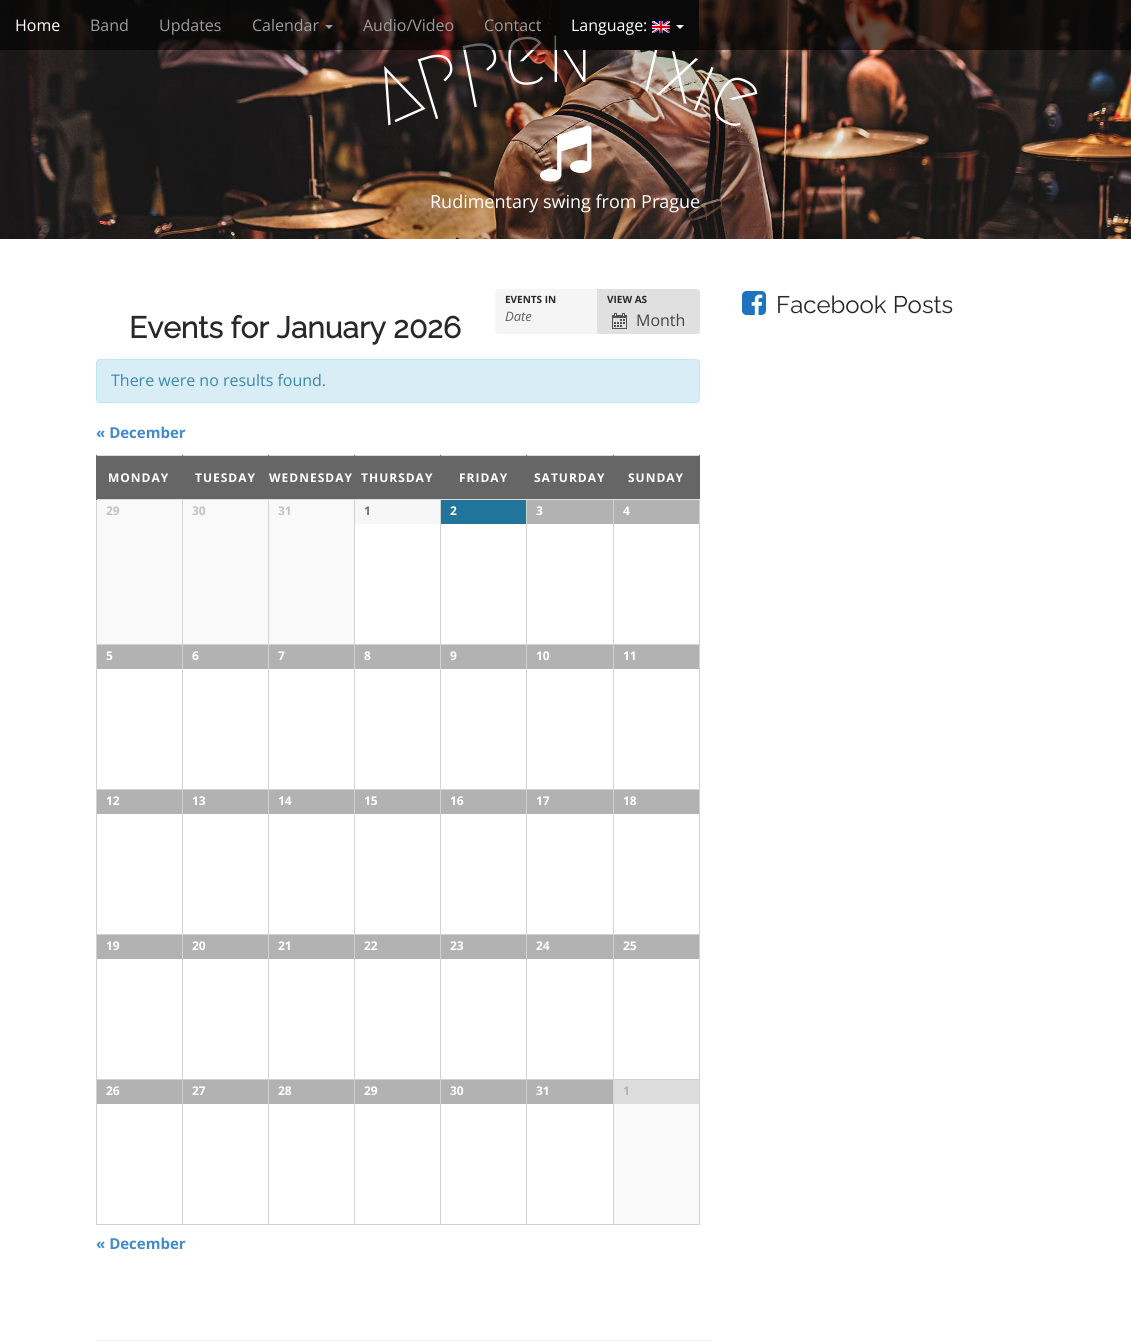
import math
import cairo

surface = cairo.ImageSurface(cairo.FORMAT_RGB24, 1131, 1341)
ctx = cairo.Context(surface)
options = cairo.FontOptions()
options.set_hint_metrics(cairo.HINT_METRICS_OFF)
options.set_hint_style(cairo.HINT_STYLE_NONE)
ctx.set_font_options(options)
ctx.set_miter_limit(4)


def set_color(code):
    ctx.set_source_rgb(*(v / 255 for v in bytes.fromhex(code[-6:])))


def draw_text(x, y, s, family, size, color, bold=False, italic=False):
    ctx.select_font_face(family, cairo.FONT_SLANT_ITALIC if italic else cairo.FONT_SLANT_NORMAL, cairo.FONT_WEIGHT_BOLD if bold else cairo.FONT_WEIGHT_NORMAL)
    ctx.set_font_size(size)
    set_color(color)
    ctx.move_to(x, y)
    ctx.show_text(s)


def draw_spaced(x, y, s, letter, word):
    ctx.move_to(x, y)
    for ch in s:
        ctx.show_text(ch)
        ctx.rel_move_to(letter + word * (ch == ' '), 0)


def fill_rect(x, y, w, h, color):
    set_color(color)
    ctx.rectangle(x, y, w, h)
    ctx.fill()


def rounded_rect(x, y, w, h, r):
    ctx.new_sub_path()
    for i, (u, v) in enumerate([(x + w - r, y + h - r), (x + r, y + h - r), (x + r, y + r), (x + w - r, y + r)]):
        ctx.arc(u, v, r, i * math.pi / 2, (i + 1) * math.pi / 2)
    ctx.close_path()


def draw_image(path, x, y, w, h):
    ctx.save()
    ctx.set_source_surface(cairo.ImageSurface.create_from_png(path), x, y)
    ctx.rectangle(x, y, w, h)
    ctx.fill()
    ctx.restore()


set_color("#ffffff")
ctx.paint()
draw_image("assets/img2.png", 0, 0, 1131, 239)
ctx.save()
ctx.translate(464, 93)
ctx.rotate(-11 * math.pi / 180)
draw_text(0, 0, "p", "Megrim Medium", 80, "#ffffff")
ctx.restore()
ctx.save()
ctx.translate(505, 86)
ctx.rotate(-5 * math.pi / 180)
draw_text(0, 0, "e", "Megrim Medium", 80, "#ffffff")
ctx.restore()
draw_text(547, 82, "n", "Megrim Medium", 80, "#ffffff")
ctx.save()
ctx.translate(638, 89)
ctx.rotate(13 * math.pi / 180)
draw_text(0, 0, "i", "Megrim Medium", 80, "#ffffff")
ctx.restore()
ctx.set_source_rgba(0, 0, 0, 0.6)
ctx.rectangle(0, 0, 1131, 50)
ctx.fill()
draw_text(15, 31, "Home", "Open Sans", 16, "#ffffff")
draw_text(90, 31, "Band", "Open Sans", 16, "#9d9d9d")
draw_text(159, 31, "Updates", "Open Sans", 16, "#9d9d9d")
draw_text(252, 31, "Calendar", "Open Sans", 16, "#9d9d9d")
ctx.new_path()
ctx.move_to(325, 25)
ctx.line_to(333, 25)
ctx.line_to(329, 29)
ctx.close_path()
ctx.fill()
draw_text(363, 31, "Audio/Video", "Open Sans", 16, "#9d9d9d")
draw_text(484, 31, "Contact", "Open Sans", 16, "#9d9d9d")
fill_rect(556, 0, 143, 50, "#090909")
draw_text(571, 31, "Language:", "Open Sans", 16, "#ffffff")
draw_image("assets/img1.png", 652, 21, 18, 12)
ctx.new_path()
ctx.move_to(676, 25)
ctx.line_to(684, 25)
ctx.line_to(680, 29)
ctx.close_path()
ctx.fill()
ctx.save()
ctx.translate(387, 126)
ctx.rotate(-24 * math.pi / 180)
draw_text(0, 0, "A", "Megrim Medium", 80, "#ffffff")
ctx.restore()
ctx.save()
ctx.translate(424, 106)
ctx.rotate(-17 * math.pi / 180)
draw_text(0, 0, "p", "Megrim Medium", 80, "#ffffff")
ctx.restore()
ctx.save()
ctx.translate(654, 94)
ctx.rotate(17 * math.pi / 180)
draw_text(0, 0, "x", "Megrim Medium", 80, "#ffffff")
ctx.restore()
ctx.save()
ctx.translate(687, 107)
ctx.rotate(22 * math.pi / 180)
draw_text(0, 0, "i", "Megrim Medium", 80, "#ffffff")
ctx.restore()
ctx.save()
ctx.translate(704, 112)
ctx.rotate(26 * math.pi / 180)
draw_text(0, 0, "e", "Megrim Medium", 80, "#ffffff")
ctx.restore()
draw_image("assets/img3.png", 540, 125, 52, 57)
draw_text(430, 208, "Rudimentary swing from Prague", "Open Sans", 18, "#ffffff")
fill_rect(96, 1340, 616, 1, "#eeeeee")
set_color("#f5f5f5")
rounded_rect(495, 289, 205, 45, 3)
ctx.fill()
draw_text(505, 303, "EVENTS IN", "Open Sans", 10, "#282828", bold=True)
draw_text(505, 321, "Date", "Open Sans", 13, "#5f5f5f", italic=True)
set_color("#e0e0e0")
ctx.new_path()
ctx.move_to(597, 289)
ctx.line_to(697, 289)
ctx.curve_to(698.5, 289, 700, 290.5, 700, 292)
ctx.line_to(700, 331)
ctx.curve_to(700, 332.5, 698.5, 334, 697, 334)
ctx.line_to(597, 334)
ctx.close_path()
ctx.fill()
draw_text(607, 303, "VIEW AS", "Open Sans", 10, "#282828", bold=True)
fill_rect(699, 332, 1, 1, "#e0e0e0")
draw_image("assets/img4.png", 612, 313, 15, 16)
draw_text(636, 326, "Month", "Open Sans", 16, "#444444")
draw_text(129, 338, "Events for January 2026", "Raleway", 30, "#282828", bold=True)
set_color("#d9edf7")
rounded_rect(96.5, 359.5, 603, 43, 3.5)
ctx.fill_preserve()
set_color("#bce8f1")
ctx.set_line_width(1)
ctx.stroke()
draw_text(111, 386, "There were no results found.", "Open Sans", 16, "#3a87ad")
draw_text(96, 438, "« December", "Open Sans", 15, "#428bca", bold=True)
fill_rect(183, 1224, 517, 1, "#d2d2d2")
fill_rect(97, 456, 85, 43, "#666666")
fill_rect(96, 455, 604, 1, "#dddddd")
fill_rect(699, 499, 1, 726, "#d2d2d2")
fill_rect(699, 455, 1, 45, "#666666")
fill_rect(613, 1079, 1, 146, "#d2d2d2")
fill_rect(613, 1079, 87, 1, "#d2d2d2")
fill_rect(613, 934, 1, 146, "#d2d2d2")
fill_rect(613, 934, 87, 1, "#d2d2d2")
fill_rect(613, 789, 1, 146, "#d2d2d2")
fill_rect(613, 789, 87, 1, "#d2d2d2")
fill_rect(613, 644, 1, 146, "#d2d2d2")
fill_rect(613, 644, 87, 1, "#d2d2d2")
fill_rect(613, 499, 1, 146, "#d2d2d2")
fill_rect(613, 499, 87, 1, "#dddddd")
fill_rect(613, 455, 1, 45, "#666666")
fill_rect(526, 1079, 1, 146, "#d2d2d2")
fill_rect(526, 1079, 88, 1, "#d2d2d2")
fill_rect(526, 934, 1, 146, "#d2d2d2")
fill_rect(526, 934, 88, 1, "#d2d2d2")
fill_rect(526, 789, 1, 146, "#d2d2d2")
fill_rect(526, 789, 88, 1, "#d2d2d2")
fill_rect(526, 644, 1, 146, "#d2d2d2")
fill_rect(526, 644, 88, 1, "#d2d2d2")
fill_rect(526, 499, 1, 146, "#d2d2d2")
fill_rect(526, 499, 88, 1, "#dddddd")
fill_rect(526, 455, 1, 45, "#666666")
fill_rect(440, 1079, 1, 146, "#d2d2d2")
fill_rect(440, 1079, 87, 1, "#d2d2d2")
fill_rect(440, 934, 1, 146, "#d2d2d2")
fill_rect(440, 934, 87, 1, "#d2d2d2")
fill_rect(440, 789, 1, 146, "#d2d2d2")
fill_rect(440, 789, 87, 1, "#d2d2d2")
fill_rect(440, 644, 1, 146, "#d2d2d2")
fill_rect(440, 644, 87, 1, "#d2d2d2")
fill_rect(440, 499, 1, 146, "#d2d2d2")
fill_rect(440, 499, 87, 1, "#dddddd")
fill_rect(440, 455, 1, 45, "#666666")
fill_rect(354, 1079, 1, 146, "#d2d2d2")
fill_rect(354, 1079, 87, 1, "#d2d2d2")
fill_rect(354, 934, 1, 146, "#d2d2d2")
fill_rect(354, 934, 87, 1, "#d2d2d2")
fill_rect(354, 789, 1, 146, "#d2d2d2")
fill_rect(354, 789, 87, 1, "#d2d2d2")
fill_rect(354, 644, 1, 146, "#d2d2d2")
fill_rect(354, 644, 87, 1, "#d2d2d2")
fill_rect(354, 499, 1, 146, "#d2d2d2")
fill_rect(354, 499, 87, 1, "#dddddd")
fill_rect(354, 455, 1, 45, "#666666")
fill_rect(268, 1079, 1, 146, "#d2d2d2")
fill_rect(268, 1079, 87, 1, "#d2d2d2")
fill_rect(268, 934, 1, 146, "#d2d2d2")
fill_rect(268, 934, 87, 1, "#d2d2d2")
fill_rect(268, 789, 1, 146, "#d2d2d2")
fill_rect(268, 789, 87, 1, "#d2d2d2")
fill_rect(268, 644, 1, 146, "#d2d2d2")
fill_rect(268, 644, 87, 1, "#d2d2d2")
fill_rect(268, 499, 1, 146, "#d2d2d2")
fill_rect(268, 499, 87, 1, "#dddddd")
fill_rect(268, 455, 1, 45, "#666666")
fill_rect(182, 1079, 1, 146, "#d2d2d2")
fill_rect(182, 1079, 87, 1, "#d2d2d2")
fill_rect(182, 934, 1, 146, "#d2d2d2")
fill_rect(182, 934, 87, 1, "#d2d2d2")
fill_rect(182, 789, 1, 146, "#d2d2d2")
fill_rect(182, 789, 87, 1, "#d2d2d2")
fill_rect(182, 644, 1, 146, "#d2d2d2")
fill_rect(182, 644, 87, 1, "#d2d2d2")
fill_rect(182, 499, 1, 146, "#d2d2d2")
fill_rect(182, 499, 87, 1, "#dddddd")
fill_rect(182, 455, 1, 45, "#666666")
fill_rect(96, 1224, 87, 1, "#d2d2d2")
fill_rect(96, 1079, 1, 146, "#d2d2d2")
fill_rect(96, 1079, 87, 1, "#d2d2d2")
fill_rect(96, 934, 1, 146, "#d2d2d2")
fill_rect(96, 934, 87, 1, "#d2d2d2")
fill_rect(96, 789, 1, 146, "#d2d2d2")
fill_rect(96, 789, 87, 1, "#d2d2d2")
fill_rect(96, 644, 1, 146, "#d2d2d2")
fill_rect(96, 644, 87, 1, "#d2d2d2")
fill_rect(96, 499, 1, 146, "#d2d2d2")
fill_rect(96, 499, 87, 1, "#dddddd")
fill_rect(96, 455, 1, 45, "#666666")
ctx.set_font_size(12)
set_color("#ffffff")
draw_spaced(108, 482, "MONDAY", 1, 0)
fill_rect(183, 456, 85, 43, "#666666")
set_color("#ffffff")
draw_spaced(195, 482, "TUESDAY", 1, 0)
fill_rect(269, 456, 85, 43, "#666666")
set_color("#ffffff")
draw_spaced(269, 482, "WEDNESDAY", 1, 0)
fill_rect(355, 456, 85, 43, "#666666")
set_color("#ffffff")
draw_spaced(361, 482, "THURSDAY", 1, 0)
fill_rect(441, 456, 85, 43, "#666666")
set_color("#ffffff")
draw_spaced(459, 482, "FRIDAY", 1, 0)
fill_rect(527, 456, 86, 43, "#666666")
set_color("#ffffff")
draw_spaced(534, 482, "SATURDAY", 1, 0)
fill_rect(614, 456, 85, 43, "#666666")
set_color("#ffffff")
draw_spaced(628, 482, "SUNDAY", 1, 0)
fill_rect(97, 500, 85, 144, "#f9f9f9")
draw_text(106, 515, "29", "Open Sans", 12, "#c2c2c2", bold=True)
fill_rect(183, 500, 85, 144, "#f9f9f9")
draw_text(192, 515, "30", "Open Sans", 12, "#c2c2c2", bold=True)
fill_rect(269, 500, 85, 144, "#f9f9f9")
draw_text(278, 515, "31", "Open Sans", 12, "#c2c2c2", bold=True)
fill_rect(355, 500, 85, 24, "#f7f7f7")
draw_text(364, 515, "1", "Open Sans", 12, "#707070", bold=True)
fill_rect(441, 500, 85, 24, "#21759b")
draw_text(450, 515, "2", "Open Sans", 12, "#ffffff", bold=True)
fill_rect(527, 500, 86, 24, "#b2b2b2")
draw_text(536, 515, "3", "Open Sans", 12, "#ffffff", bold=True)
fill_rect(614, 500, 85, 24, "#b2b2b2")
draw_text(623, 515, "4", "Open Sans", 12, "#ffffff", bold=True)
fill_rect(97, 645, 85, 24, "#b2b2b2")
draw_text(106, 660, "5", "Open Sans", 12, "#ffffff", bold=True)
fill_rect(183, 645, 85, 24, "#b2b2b2")
draw_text(192, 660, "6", "Open Sans", 12, "#ffffff", bold=True)
fill_rect(269, 645, 85, 24, "#b2b2b2")
draw_text(278, 660, "7", "Open Sans", 12, "#ffffff", bold=True)
fill_rect(355, 645, 85, 24, "#b2b2b2")
draw_text(364, 660, "8", "Open Sans", 12, "#ffffff", bold=True)
fill_rect(441, 645, 85, 24, "#b2b2b2")
draw_text(450, 660, "9", "Open Sans", 12, "#ffffff", bold=True)
fill_rect(527, 645, 86, 24, "#b2b2b2")
draw_text(536, 660, "10", "Open Sans", 12, "#ffffff", bold=True)
fill_rect(614, 645, 85, 24, "#b2b2b2")
draw_text(623, 660, "11", "Open Sans", 12, "#ffffff", bold=True)
fill_rect(97, 790, 85, 24, "#b2b2b2")
draw_text(106, 805, "12", "Open Sans", 12, "#ffffff", bold=True)
fill_rect(183, 790, 85, 24, "#b2b2b2")
draw_text(192, 805, "13", "Open Sans", 12, "#ffffff", bold=True)
fill_rect(269, 790, 85, 24, "#b2b2b2")
draw_text(278, 805, "14", "Open Sans", 12, "#ffffff", bold=True)
fill_rect(355, 790, 85, 24, "#b2b2b2")
draw_text(364, 805, "15", "Open Sans", 12, "#ffffff", bold=True)
fill_rect(441, 790, 85, 24, "#b2b2b2")
draw_text(450, 805, "16", "Open Sans", 12, "#ffffff", bold=True)
fill_rect(527, 790, 86, 24, "#b2b2b2")
draw_text(536, 805, "17", "Open Sans", 12, "#ffffff", bold=True)
fill_rect(614, 790, 85, 24, "#b2b2b2")
draw_text(623, 805, "18", "Open Sans", 12, "#ffffff", bold=True)
fill_rect(97, 935, 85, 24, "#b2b2b2")
draw_text(106, 950, "19", "Open Sans", 12, "#ffffff", bold=True)
fill_rect(183, 935, 85, 24, "#b2b2b2")
draw_text(192, 950, "20", "Open Sans", 12, "#ffffff", bold=True)
fill_rect(269, 935, 85, 24, "#b2b2b2")
draw_text(278, 950, "21", "Open Sans", 12, "#ffffff", bold=True)
fill_rect(355, 935, 85, 24, "#b2b2b2")
draw_text(364, 950, "22", "Open Sans", 12, "#ffffff", bold=True)
fill_rect(441, 935, 85, 24, "#b2b2b2")
draw_text(450, 950, "23", "Open Sans", 12, "#ffffff", bold=True)
fill_rect(527, 935, 86, 24, "#b2b2b2")
draw_text(536, 950, "24", "Open Sans", 12, "#ffffff", bold=True)
fill_rect(614, 935, 85, 24, "#b2b2b2")
draw_text(623, 950, "25", "Open Sans", 12, "#ffffff", bold=True)
fill_rect(97, 1080, 85, 24, "#b2b2b2")
draw_text(106, 1095, "26", "Open Sans", 12, "#ffffff", bold=True)
fill_rect(183, 1080, 85, 24, "#b2b2b2")
draw_text(192, 1095, "27", "Open Sans", 12, "#ffffff", bold=True)
fill_rect(269, 1080, 85, 24, "#b2b2b2")
draw_text(278, 1095, "28", "Open Sans", 12, "#ffffff", bold=True)
fill_rect(355, 1080, 85, 24, "#b2b2b2")
draw_text(364, 1095, "29", "Open Sans", 12, "#ffffff", bold=True)
fill_rect(441, 1080, 85, 24, "#b2b2b2")
draw_text(450, 1095, "30", "Open Sans", 12, "#ffffff", bold=True)
fill_rect(527, 1080, 86, 24, "#b2b2b2")
draw_text(536, 1095, "31", "Open Sans", 12, "#ffffff", bold=True)
fill_rect(614, 1104, 85, 120, "#f9f9f9")
fill_rect(614, 1080, 85, 24, "#dddddd")
draw_text(623, 1095, "1", "Open Sans", 12, "#b1b1b1", bold=True)
draw_text(96, 1249, "« December", "Open Sans", 15, "#428bca", bold=True)
draw_image("assets/img5.png", 742, 291, 24, 24)
draw_text(776, 313, "Facebook Posts", "Raleway Thin", 24, "#282828")
surface.write_to_png("output.png")
